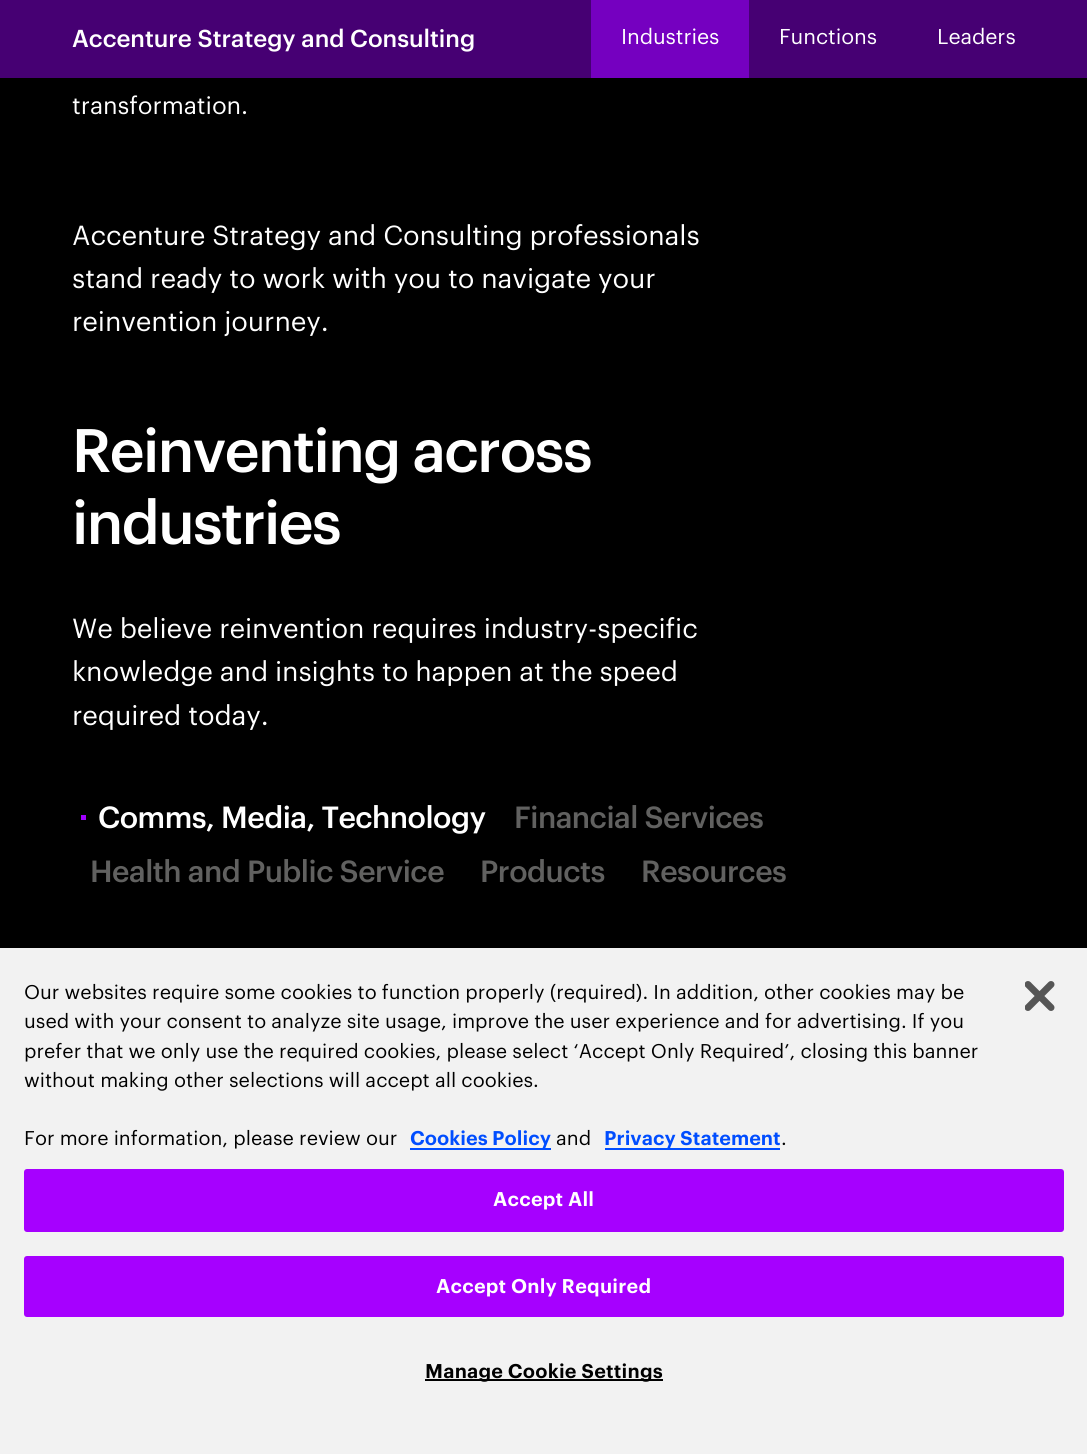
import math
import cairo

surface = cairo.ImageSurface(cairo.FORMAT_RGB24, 1087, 1454)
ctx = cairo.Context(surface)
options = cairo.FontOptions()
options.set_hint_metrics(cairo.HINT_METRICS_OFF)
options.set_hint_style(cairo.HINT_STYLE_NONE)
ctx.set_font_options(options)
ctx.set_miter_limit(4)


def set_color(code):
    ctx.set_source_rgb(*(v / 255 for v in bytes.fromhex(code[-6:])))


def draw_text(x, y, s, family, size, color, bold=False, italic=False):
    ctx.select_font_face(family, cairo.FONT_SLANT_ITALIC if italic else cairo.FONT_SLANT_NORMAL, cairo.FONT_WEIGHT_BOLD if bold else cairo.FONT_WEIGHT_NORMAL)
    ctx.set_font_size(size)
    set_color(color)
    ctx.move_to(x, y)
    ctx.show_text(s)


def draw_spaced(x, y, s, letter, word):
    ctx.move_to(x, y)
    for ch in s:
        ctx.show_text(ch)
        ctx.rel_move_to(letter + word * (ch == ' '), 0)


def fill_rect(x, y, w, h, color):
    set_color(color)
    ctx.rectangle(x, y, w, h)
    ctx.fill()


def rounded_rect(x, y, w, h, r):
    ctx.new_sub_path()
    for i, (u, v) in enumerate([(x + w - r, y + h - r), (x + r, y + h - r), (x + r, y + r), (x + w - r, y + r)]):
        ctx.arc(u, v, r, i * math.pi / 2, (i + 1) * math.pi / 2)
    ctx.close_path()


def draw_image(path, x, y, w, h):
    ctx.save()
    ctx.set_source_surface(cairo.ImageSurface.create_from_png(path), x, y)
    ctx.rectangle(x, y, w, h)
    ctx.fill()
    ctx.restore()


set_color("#000000")
ctx.paint()
fill_rect(0, 0, 1087, 78, "#460073")
ctx.select_font_face("Graphik Medium")
ctx.set_font_size(24)
set_color("#ffffff")
draw_spaced(72, 47, "Accenture Strategy and Consulting", -0.1, 0)
fill_rect(591, 0, 158, 78, "#7500c0")
ctx.select_font_face("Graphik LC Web")
ctx.set_font_size(21)
set_color("#ffffff")
draw_spaced(621, 44, "Industries", -0.1, 0)
draw_spaced(779, 44, "Functions", -0.1, 0)
draw_spaced(937, 44, "Leaders", -0.1, 0)
ctx.set_font_size(24)
draw_spaced(72, 114, "transformation.", -0.1, 0)
ctx.set_font_size(27)
draw_spaced(72, 245, "Accenture Strategy and Consulting professionals", -0.15, 0)
draw_spaced(72, 288, "stand ready to work with you to navigate your", -0.15, 0)
draw_spaced(72, 331, "reinvention journey.", -0.15, 0)
ctx.select_font_face("Graphik Medium")
ctx.set_font_size(60)
draw_spaced(72, 472, "Reinventing across", -1.75, 0)
draw_spaced(72, 544, "industries", -1.75, 0)
ctx.select_font_face("Graphik LC Web")
ctx.set_font_size(27)
draw_spaced(72, 638, "We believe reinvention requires industry-specific", -0.15, 0)
draw_spaced(72, 681, "knowledge and insights to happen at the speed", -0.15, 0)
draw_spaced(72, 725, "required today.", -0.15, 0)
fill_rect(81, 815, 5, 5, "#a100ff")
ctx.select_font_face("Graphik Medium")
ctx.set_font_size(30)
set_color("#ffffff")
draw_spaced(98, 828, "Comms, Media, Technology", -0.6, 0)
set_color("#616160")
draw_spaced(514, 828, "Financial Services", -0.6, 0)
draw_spaced(90, 882, "Health and Public Service", -0.6, 0)
draw_spaced(480, 882, "Products", -0.6, 0)
draw_spaced(641, 882, "Resources", -0.6, 0)
fill_rect(0, 948, 1087, 506, "#f2f2f2")
draw_text(24, 999, "Our websites require some cookies to function properly (required). In addition, other cookies may be", "Graphik LC Web", 19.5, "#000000")
draw_text(24, 1028, "used with your consent to analyze site usage, improve the user experience and for advertising. If you", "Graphik LC Web", 19.5, "#000000")
draw_text(24, 1058, "prefer that we only use the required cookies, please select ‘Accept Only Required’, closing this banner", "Graphik LC Web", 19.5, "#000000")
draw_text(24, 1087, "without making other selections will accept all cookies.", "Graphik LC Web", 19.5, "#000000")
draw_text(24, 1145, "For more information, please review our", "Graphik LC Web", 19.5, "#000000")
fill_rect(410, 1148, 141, 2, "#004dff")
draw_text(410, 1145, "Cookies Policy", "Graphik LC Web SemiBold", 19.5, "#004dff")
draw_text(556, 1145, "and", "Graphik LC Web", 19.5, "#000000")
fill_rect(605, 1148, 175, 2, "#004dff")
draw_text(604, 1145, "Privacy Statement", "Graphik LC Web SemiBold", 19.5, "#004dff")
draw_text(781, 1145, ".", "Graphik LC Web", 19.5, "#000000")
set_color("#a600ff")
rounded_rect(25, 1170, 1038, 61, 2)
ctx.fill_preserve()
ctx.stroke()
ctx.select_font_face("Graphik LC Web SemiBold")
set_color("#ffffff")
draw_spaced(493, 1206, "Accept All", 0.2, 0)
set_color("#a600ff")
rounded_rect(25, 1257, 1038, 59, 2)
ctx.fill_preserve()
ctx.stroke()
set_color("#ffffff")
draw_spaced(436, 1293, "Accept Only Required", 0.2, 0)
fill_rect(425, 1379, 238, 2, "#000000")
draw_spaced(425, 1378, "Manage Cookie Settings", 0.2, 0)
draw_image("assets/img1.png", 1025, 981, 30, 30)
surface.write_to_png("output.png")
